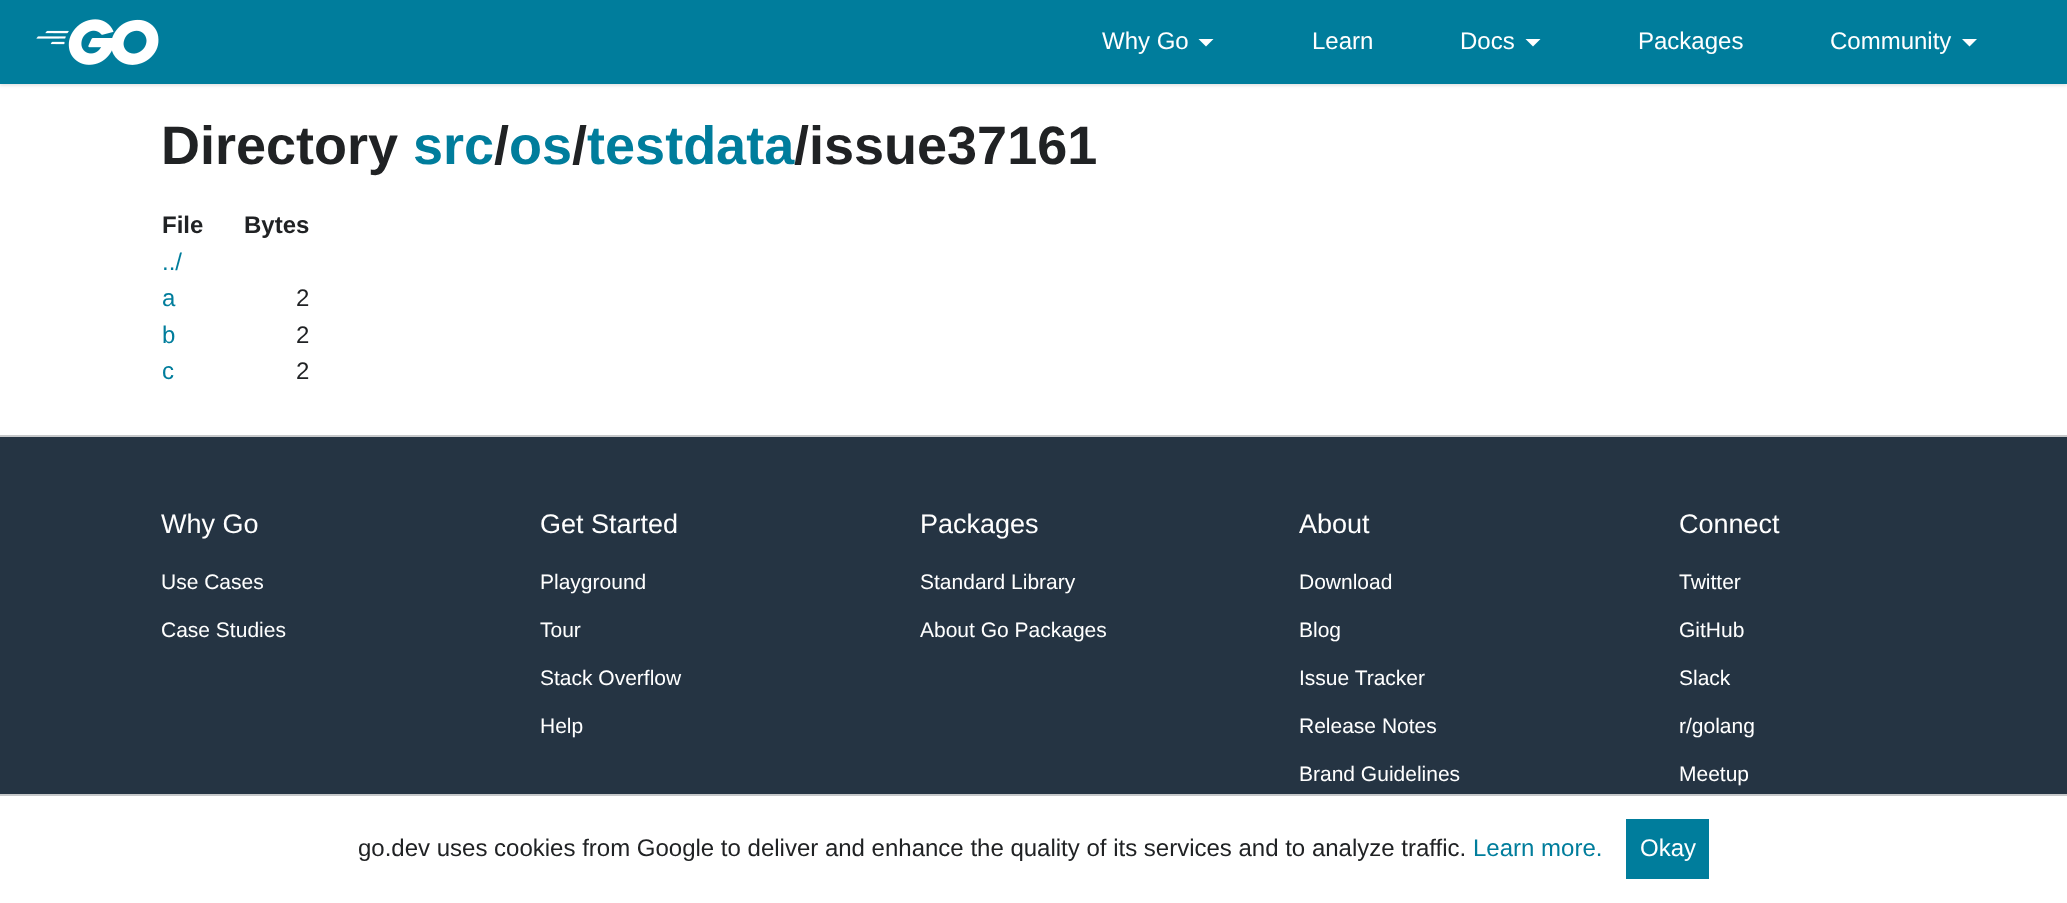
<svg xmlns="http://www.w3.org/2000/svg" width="2067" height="903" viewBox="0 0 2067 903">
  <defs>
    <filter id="blur1" x="-50%" y="-200%" width="200%" height="500%"><feGaussianBlur stdDeviation="1.5"/></filter>
  </defs>
  <rect width="100%" height="100%" fill="#ffffff"/>
  <rect x="0" y="2" width="2067" height="84" fill="#ababab" fill-opacity="0.3" filter="url(#blur1)"/>
  <rect x="0" y="0" width="2067" height="84" fill="#007d9c"/>
  <image x="36" y="19" width="123" height="46" href="img1.png"/>
  <text x="1102" y="49" font-family="Liberation Sans" font-size="24" fill="#ffffff">Why Go</text>
  <path d="M1198.5 39H1213.5L1206 46.5Z" fill="#ffffff"/>
  <text x="1312" y="49" font-family="Liberation Sans" font-size="24" fill="#ffffff">Learn</text>
  <text x="1460" y="49" font-family="Liberation Sans" font-size="24" fill="#ffffff">Docs</text>
  <path d="M1525.5 39H1540.5L1533 46.5Z" fill="#ffffff"/>
  <text x="1638" y="49" font-family="Liberation Sans" font-size="24" fill="#ffffff">Packages</text>
  <text x="1830" y="49" font-family="Liberation Sans" font-size="24" fill="#ffffff">Community</text>
  <path d="M1962 39H1977L1969.5 46.5Z" fill="#ffffff"/>
  <text x="161" y="164" font-family="Liberation Sans" font-size="54" font-weight="bold" fill="#202224">Directory</text>
  <text x="413" y="164" font-family="Liberation Sans" font-size="54" font-weight="bold" fill="#007d9c">src os testdata</text>
  <text x="494" y="164" font-family="Liberation Sans" font-size="54" font-weight="bold" fill="#202224">/</text>
  <text x="572" y="164" font-family="Liberation Sans" font-size="54" font-weight="bold" fill="#202224">/</text>
  <text x="794" y="164" font-family="Liberation Sans" font-size="54" font-weight="bold" fill="#202224">/issue37161</text>
  <text x="162" y="233" font-family="Liberation Sans" font-size="24" font-weight="bold" fill="#202224">File</text>
  <text x="244" y="233" font-family="Liberation Sans" font-size="24" font-weight="bold" fill="#202224">Bytes</text>
  <text x="162" y="270" font-family="Liberation Sans" font-size="24" fill="#007d9c">../</text>
  <text x="162" y="306" font-family="Liberation Sans" font-size="24" fill="#007d9c">a</text>
  <text x="296" y="306" font-family="Liberation Sans" font-size="24" fill="#202224">2</text>
  <text x="162" y="343" font-family="Liberation Sans" font-size="24" fill="#007d9c">b</text>
  <text x="296" y="343" font-family="Liberation Sans" font-size="24" fill="#202224">2</text>
  <text x="162" y="379" font-family="Liberation Sans" font-size="24" fill="#007d9c">c</text>
  <text x="296" y="379" font-family="Liberation Sans" font-size="24" fill="#202224">2</text>
  <rect x="0" y="435" width="2067" height="2" fill="#c6c8ca"/>
  <rect x="0" y="437" width="2067" height="357" fill="#253443"/>
  <text x="161" y="533" font-family="Liberation Sans" font-size="27" fill="#ffffff">Why Go</text>
  <text x="161" y="589" font-family="Liberation Sans" font-size="21" fill="#ffffff">Use Cases</text>
  <text x="161" y="637" font-family="Liberation Sans" font-size="21" fill="#ffffff">Case Studies</text>
  <text x="540" y="533" font-family="Liberation Sans" font-size="27" fill="#ffffff">Get Started</text>
  <text x="540" y="589" font-family="Liberation Sans" font-size="21" fill="#ffffff">Playground</text>
  <text x="540" y="637" font-family="Liberation Sans" font-size="21" fill="#ffffff">Tour</text>
  <text x="540" y="685" font-family="Liberation Sans" font-size="21" fill="#ffffff">Stack Overflow</text>
  <text x="540" y="733" font-family="Liberation Sans" font-size="21" fill="#ffffff">Help</text>
  <text x="920" y="533" font-family="Liberation Sans" font-size="27" fill="#ffffff">Packages</text>
  <text x="920" y="589" font-family="Liberation Sans" font-size="21" fill="#ffffff">Standard Library</text>
  <text x="920" y="637" font-family="Liberation Sans" font-size="21" fill="#ffffff">About Go Packages</text>
  <text x="1299" y="533" font-family="Liberation Sans" font-size="27" fill="#ffffff">About</text>
  <text x="1299" y="589" font-family="Liberation Sans" font-size="21" fill="#ffffff">Download</text>
  <text x="1299" y="637" font-family="Liberation Sans" font-size="21" fill="#ffffff">Blog</text>
  <text x="1299" y="685" font-family="Liberation Sans" font-size="21" fill="#ffffff">Issue Tracker</text>
  <text x="1299" y="733" font-family="Liberation Sans" font-size="21" fill="#ffffff">Release Notes</text>
  <text x="1299" y="781" font-family="Liberation Sans" font-size="21" fill="#ffffff">Brand Guidelines</text>
  <text x="1679" y="533" font-family="Liberation Sans" font-size="27" fill="#ffffff">Connect</text>
  <text x="1679" y="589" font-family="Liberation Sans" font-size="21" fill="#ffffff">Twitter</text>
  <text x="1679" y="637" font-family="Liberation Sans" font-size="21" fill="#ffffff">GitHub</text>
  <text x="1679" y="685" font-family="Liberation Sans" font-size="21" fill="#ffffff">Slack</text>
  <text x="1679" y="733" font-family="Liberation Sans" font-size="21" fill="#ffffff">r/golang</text>
  <text x="1679" y="781" font-family="Liberation Sans" font-size="21" fill="#ffffff">Meetup</text>
  <rect x="0" y="794" width="2067" height="2" fill="#c6c8ca"/>
  <text x="358" y="856" font-family="Liberation Sans" font-size="24" fill="#202224">go.dev uses cookies from Google to deliver and enhance the quality of its services and to analyze traffic.</text>
  <text x="1473" y="856" font-family="Liberation Sans" font-size="24" fill="#007d9c">Learn more.</text>
  <rect x="1626" y="819" width="83" height="60" fill="#007d9c"/>
  <text x="1640" y="856" font-family="Liberation Sans" font-size="24" fill="#ffffff">Okay</text>
</svg>
